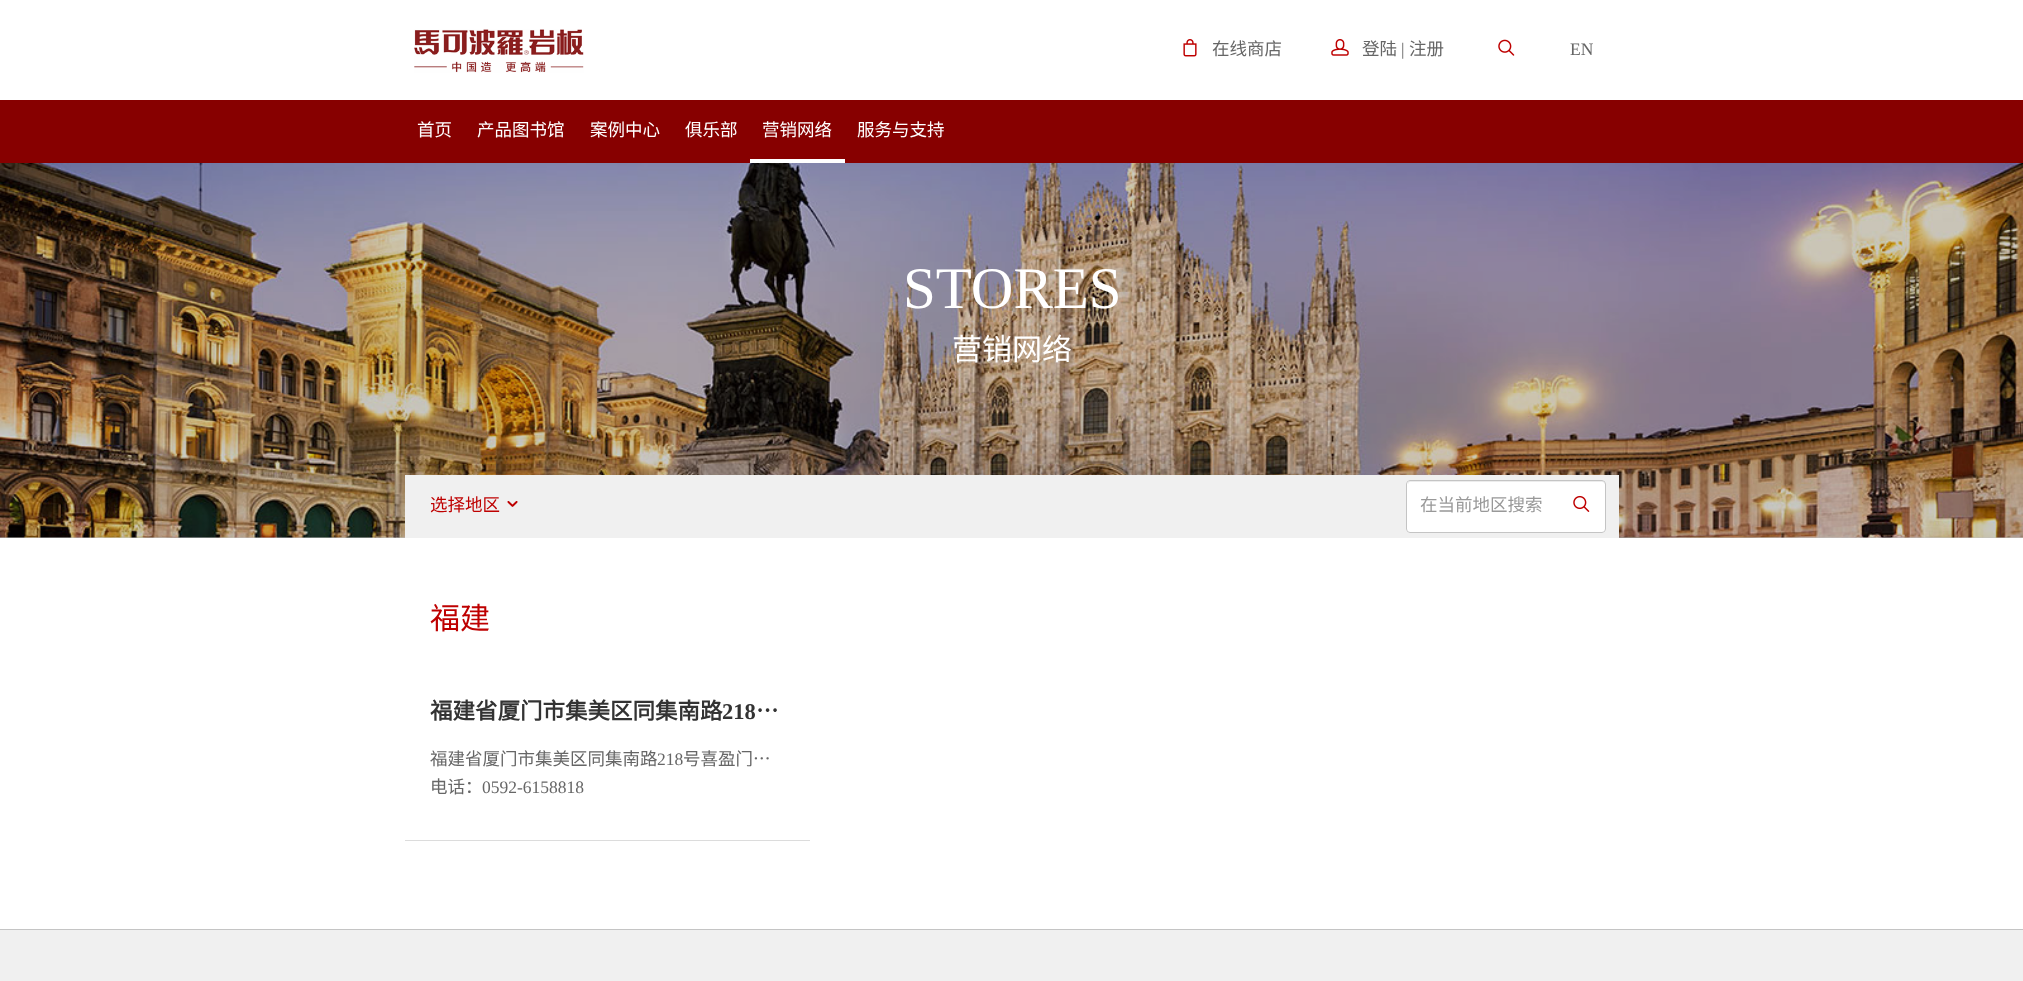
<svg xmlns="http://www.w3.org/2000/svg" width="2023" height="981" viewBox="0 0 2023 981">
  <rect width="100%" height="100%" fill="#ffffff"/>
  <image x="414" y="29" width="170" height="44" href="img1.png"/>
  <image x="1183" y="39" width="14" height="18" href="img2.png"/>
  <text x="1212" y="55" font-family="Noto Sans CJK SC" font-size="17.5" fill="#666666">在线商店</text>
  <image x="1331" y="39" width="18" height="17" href="img3.png"/>
  <text x="1362" y="55" font-family="Noto Sans CJK SC" font-size="17.5" fill="#666666">登陆</text>
  <text x="1401" y="55" font-family="Liberation Serif" font-size="17.5" fill="#666666">|</text>
  <text x="1409" y="55" font-family="Noto Sans CJK SC" font-size="17.5" fill="#666666">注册</text>
  <image x="1498" y="39" width="17" height="17" href="img4.png"/>
  <text x="1570" y="55" font-family="Liberation Serif" font-size="17.5" fill="#666666">EN</text>
  <rect x="0" y="100" width="2023" height="63" fill="#870000"/>
  <text x="417" y="136" font-family="Noto Sans CJK SC" font-size="17.5" fill="#ffffff">首页</text>
  <text x="477" y="136" font-family="Noto Sans CJK SC" font-size="17.5" fill="#ffffff">产品图书馆</text>
  <text x="590" y="136" font-family="Noto Sans CJK SC" font-size="17.5" fill="#ffffff">案例中心</text>
  <text x="685" y="136" font-family="Noto Sans CJK SC" font-size="17.5" fill="#ffffff">俱乐部</text>
  <text x="762" y="136" font-family="Noto Sans CJK SC" font-size="17.5" fill="#ffffff">营销网络</text>
  <rect x="750" y="159" width="95" height="4" fill="#ffffff"/>
  <text x="857" y="136" font-family="Noto Sans CJK SC" font-size="17.5" fill="#ffffff">服务与支持</text>
  <rect x="0" y="537" width="2023" height="1" fill="#c0c0c0"/>
  <image x="0" y="163" width="2023" height="375" href="img5.png"/>
  <text x="903" y="308" font-family="Liberation Serif" font-size="59" fill="#ffffff">STORES</text>
  <text x="952" y="360" font-family="Noto Sans CJK SC" font-size="30" fill="#ffffff">营销网络</text>
  <rect x="405" y="475" width="1214" height="63" fill="#f0f0f0"/>
  <text x="430" y="511" font-family="Noto Sans CJK SC" font-size="17.5" fill="#be0000">选择地区</text>
  <image x="507" y="501" width="11" height="6" href="img6.png"/>
  <rect x="1406" y="480" width="200" height="53" rx="4" fill="#ffffff"/>
  <path d="M1410 482H1602C1604 482 1605 484 1605 485C1605 483 1605 481 1602 481H1410C1408 481 1408 483 1408 485C1408 484 1409 482 1410 482Z" fill="#ececec"/>
  <rect x="1406.5" y="480.5" width="199" height="52" rx="3.5" fill="none" stroke="#c4c4c4"/>
  <text x="1420" y="511" font-family="Noto Sans CJK SC" font-size="17.5" fill="#999999">在当前地区搜索</text>
  <image x="1573" y="495" width="17" height="17" href="img7.png"/>
  <text x="430" y="629" font-family="Noto Sans CJK SC" font-size="30" fill="#be0000">福建</text>
  <rect x="405" y="840" width="405" height="1" fill="#dcdcdc"/>
  <text x="430" y="719" font-family="Noto Sans CJK SC" font-size="22.5" font-weight="bold" fill="#333333">福建省厦门市集美区同集南路</text>
  <text x="722" y="719" font-family="Liberation Serif" font-size="22.5" font-weight="bold" fill="#333333">218</text>
  <text x="756" y="719" font-family="Noto Sans CJK SC" font-size="22.5" font-weight="bold" fill="#333333">…</text>
  <text x="430" y="765" font-family="Noto Sans CJK SC" font-size="17.5" fill="#666666">福建省厦门市集美区同集南路</text>
  <text x="657" y="765" font-family="Liberation Serif" font-size="17.5" fill="#666666">218</text>
  <text x="683" y="765" font-family="Noto Sans CJK SC" font-size="17.5" fill="#666666">号喜盈门…</text>
  <text x="430" y="793" font-family="Noto Sans CJK SC" font-size="17.5" fill="#666666">电话：</text>
  <text x="482" y="793" font-family="Liberation Serif" font-size="17.5" fill="#666666">0592-6158818</text>
  <rect x="0" y="930" width="2023" height="51" fill="#f0f0f0"/>
  <rect x="0" y="929" width="2023" height="1" fill="#c4c4c4"/>
</svg>
